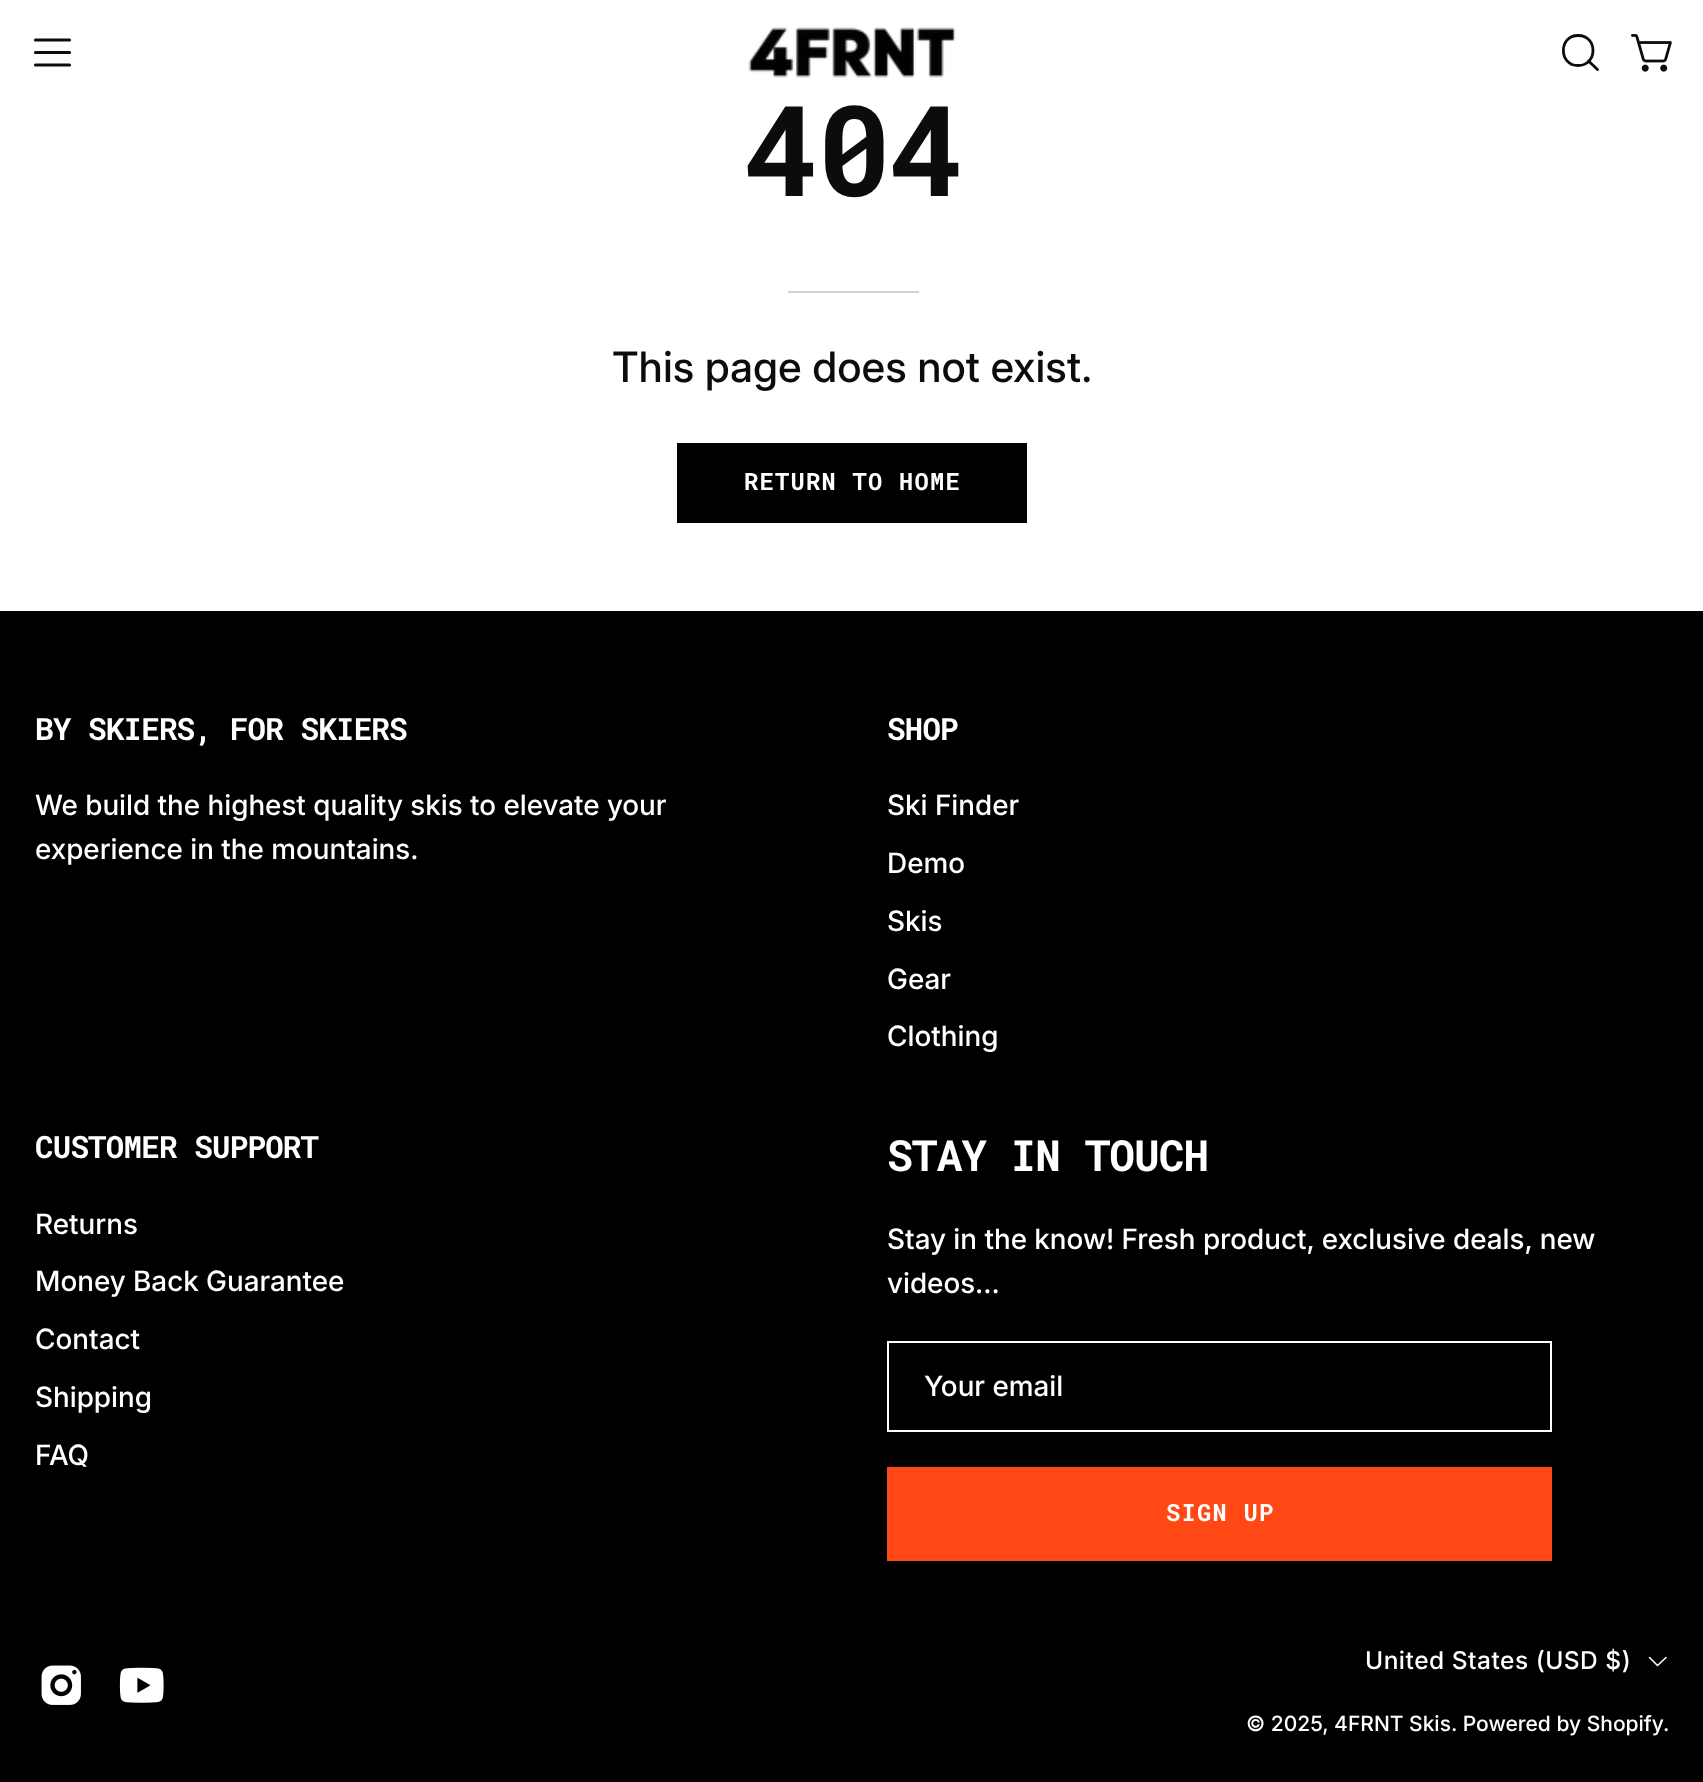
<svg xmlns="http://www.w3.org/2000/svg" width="1703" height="1782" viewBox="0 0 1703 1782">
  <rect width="100%" height="100%" fill="#000000"/>
  <rect x="0" y="0" width="1703" height="611" fill="#ffffff"/>
  <path d="M35.5 52.5H69.5M35.5 40H69.5M35.5 65H69.5" fill="none" stroke="#0c0c0f" stroke-width="3.1" stroke-linecap="round" stroke-linejoin="round"/>
  <image x="748" y="27" width="208" height="51" href="img1.png"/>
  <path d="M1578 65.5C1598 65.5 1598 35.5 1578 35.5C1558.5 35.5 1558.5 65.5 1578 65.5ZM1588.5 61L1597.5 69.5" fill="none" stroke="#0c0c0f" stroke-width="2.8" stroke-linecap="round" stroke-linejoin="round"/>
  <image x="1631" y="34" width="41" height="38" href="img2.png"/>
  <text x="744" y="196" font-family="Roboto Mono" font-size="126" font-weight="bold" letter-spacing="-3" fill="#0c0c0f">404</text>
  <rect x="788" y="291" width="131" height="2" fill="#d3d3d3"/>
  <text x="612" y="382" font-family="'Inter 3'" font-size="42" font-weight="500" fill="#0c0c0f">This page does not exist.</text>
  <rect x="677" y="443" width="350" height="80" fill="#000000"/>
  <text x="744" y="490" font-family="Roboto Mono" font-size="23.75" font-weight="bold" letter-spacing="1.25" fill="#ffffff">RETURN TO HOME</text>
  <text x="35" y="740" font-family="Roboto Mono" font-size="30.75" font-weight="bold" letter-spacing="-0.75" fill="#ffffff">BY SKIERS, FOR SKIERS</text>
  <text x="35" y="815" font-family="Inter" font-size="28" font-weight="500" fill="#ffffff">We build the highest quality skis to elevate your</text>
  <text x="35" y="859" font-family="Inter" font-size="28" font-weight="500" fill="#ffffff">experience in the mountains.</text>
  <text x="887" y="740" font-family="Roboto Mono" font-size="30.75" font-weight="bold" letter-spacing="-0.75" fill="#ffffff">SHOP</text>
  <text x="887" y="815" font-family="Inter" font-size="28" font-weight="500" fill="#ffffff">Ski Finder</text>
  <text x="887" y="873" font-family="Inter" font-size="28" font-weight="500" fill="#ffffff">Demo</text>
  <text x="887" y="931" font-family="Inter" font-size="28" font-weight="500" fill="#ffffff">Skis</text>
  <text x="887" y="989" font-family="Inter" font-size="28" font-weight="500" fill="#ffffff">Gear</text>
  <text x="887" y="1046" font-family="Inter" font-size="28" font-weight="500" fill="#ffffff">Clothing</text>
  <text x="35" y="1158" font-family="Roboto Mono" font-size="30.75" font-weight="bold" letter-spacing="-0.75" fill="#ffffff">CUSTOMER SUPPORT</text>
  <text x="35" y="1234" font-family="Inter" font-size="28" font-weight="500" fill="#ffffff">Returns</text>
  <text x="35" y="1291" font-family="Inter" font-size="28" font-weight="500" fill="#ffffff">Money Back Guarantee</text>
  <text x="35" y="1349" font-family="Inter" font-size="28" font-weight="500" fill="#ffffff">Contact</text>
  <text x="35" y="1407" font-family="Inter" font-size="28" font-weight="500" fill="#ffffff">Shipping</text>
  <text x="35" y="1465" font-family="Inter" font-size="28" font-weight="500" fill="#ffffff">FAQ</text>
  <text x="887" y="1171" font-family="Roboto Mono" font-size="43" font-weight="bold" letter-spacing="-1.1" fill="#ffffff">STAY IN TOUCH</text>
  <text x="887" y="1249" font-family="Inter" font-size="28" font-weight="500" fill="#ffffff">Stay in the know! Fresh product, exclusive deals, new</text>
  <text x="887" y="1293" font-family="Inter" font-size="28" font-weight="500" fill="#ffffff">videos...</text>
  <rect x="888" y="1342" width="663" height="89" fill="none" stroke="#ffffff" stroke-width="2"/>
  <text x="924" y="1396" font-family="Inter" font-size="28" font-weight="500" fill="#ffffff">Your email</text>
  <rect x="887" y="1467" width="665" height="94" fill="#ff4814"/>
  <text x="1166" y="1521" font-family="Roboto Mono" font-size="23.75" font-weight="bold" letter-spacing="1.25" fill="#ffffff">SIGN UP</text>
  <image x="41" y="1665" width="40" height="40" href="img3.png"/>
  <image x="119" y="1667" width="45" height="36" href="img4.png"/>
  <text x="1365" y="1669" font-family="'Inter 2'" font-size="24.5" font-weight="500" letter-spacing="0.5" fill="#ffffff">United States (USD $)</text>
  <path d="M1666 1657.5L1657.5 1665.5L1649.5 1657.5" fill="none" stroke="#ffffff" stroke-width="1.6" stroke-linecap="round" stroke-linejoin="round"/>
  <text x="1246" y="1731" font-family="'Inter 2'" font-size="21" font-weight="500" fill="#ffffff">© 2025, 4FRNT Skis. Powered by Shopify</text>
  <text x="1663" y="1731" font-family="'Inter 2'" font-size="21" font-weight="500" fill="#ffffff">.</text>
</svg>
